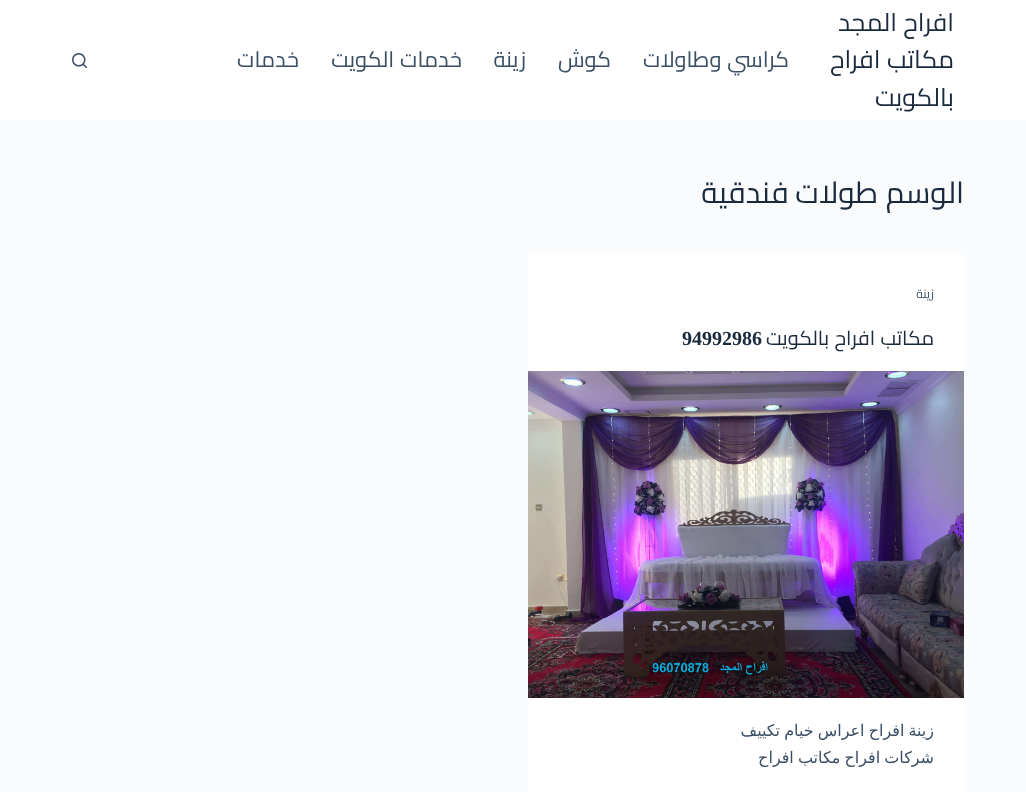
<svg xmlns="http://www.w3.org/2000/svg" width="1026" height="792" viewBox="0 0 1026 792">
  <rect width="100%" height="100%" fill="#fafbfc"/>
  <rect x="0" y="0" width="1026" height="120" fill="#ffffff"/>
  <text x="954" y="31" word-spacing="1" font-family="Cairo" font-size="25" direction="rtl" fill="#192a3d">افراح المجد</text>
  <text x="954" y="68" word-spacing="1" font-family="Cairo" font-size="25" direction="rtl" fill="#192a3d">مكاتب افراح</text>
  <text x="954" y="106" font-family="Cairo" font-size="25" direction="rtl" fill="#192a3d">بالكويت</text>
  <text x="789" y="67" word-spacing="1" font-family="Cairo" font-size="22" direction="rtl" fill="#3a4f66">كراسي وطاولات</text>
  <text x="611" y="67" font-family="Cairo" font-size="22" direction="rtl" fill="#3a4f66">كوش</text>
  <text x="526" y="67" font-family="Cairo" font-size="22" direction="rtl" fill="#3a4f66">زينة</text>
  <text x="462" y="67" word-spacing="1" font-family="Cairo" font-size="22" direction="rtl" fill="#3a4f66">خدمات الكويت</text>
  <text x="299" y="67" font-family="Cairo" font-size="22" direction="rtl" fill="#3a4f66">خدمات</text>
  <image x="72" y="53" width="15" height="15" href="img1.png"/>
  <text x="964" y="203" font-family="Cairo" font-size="30" direction="rtl" fill="#192a3d">الوسم</text>
  <text x="878" y="203" font-family="Cairo" font-size="30" direction="rtl" fill="#192a3d">طولات فندقية</text>
  <rect x="528" y="255" width="436" height="537" fill="#ffffff"/>
  <text x="934" y="298" font-family="Cairo" font-size="12" direction="rtl" fill="#3a4f66">زينة</text>
  <text x="934" y="345" word-spacing="1" font-family="Cairo" font-size="20" direction="rtl" fill="#192a3d">مكاتب افراح بالكويت</text>
  <text x="682" y="345" font-family="Liberation Serif" font-size="20" font-weight="bold" fill="#192a3d">94992986</text>
  <image x="528" y="371" width="436" height="327" href="img2.png"/>
  <text x="934" y="736" word-spacing="-1" font-family="DejaVu Sans" font-size="16" direction="rtl" fill="#3a4f66">زينة افراح اعراس خيام تكييف</text>
  <text x="934" y="763" word-spacing="-1" font-family="DejaVu Sans" font-size="16" direction="rtl" fill="#3a4f66">شركات افراح مكاتب افراح</text>
</svg>
